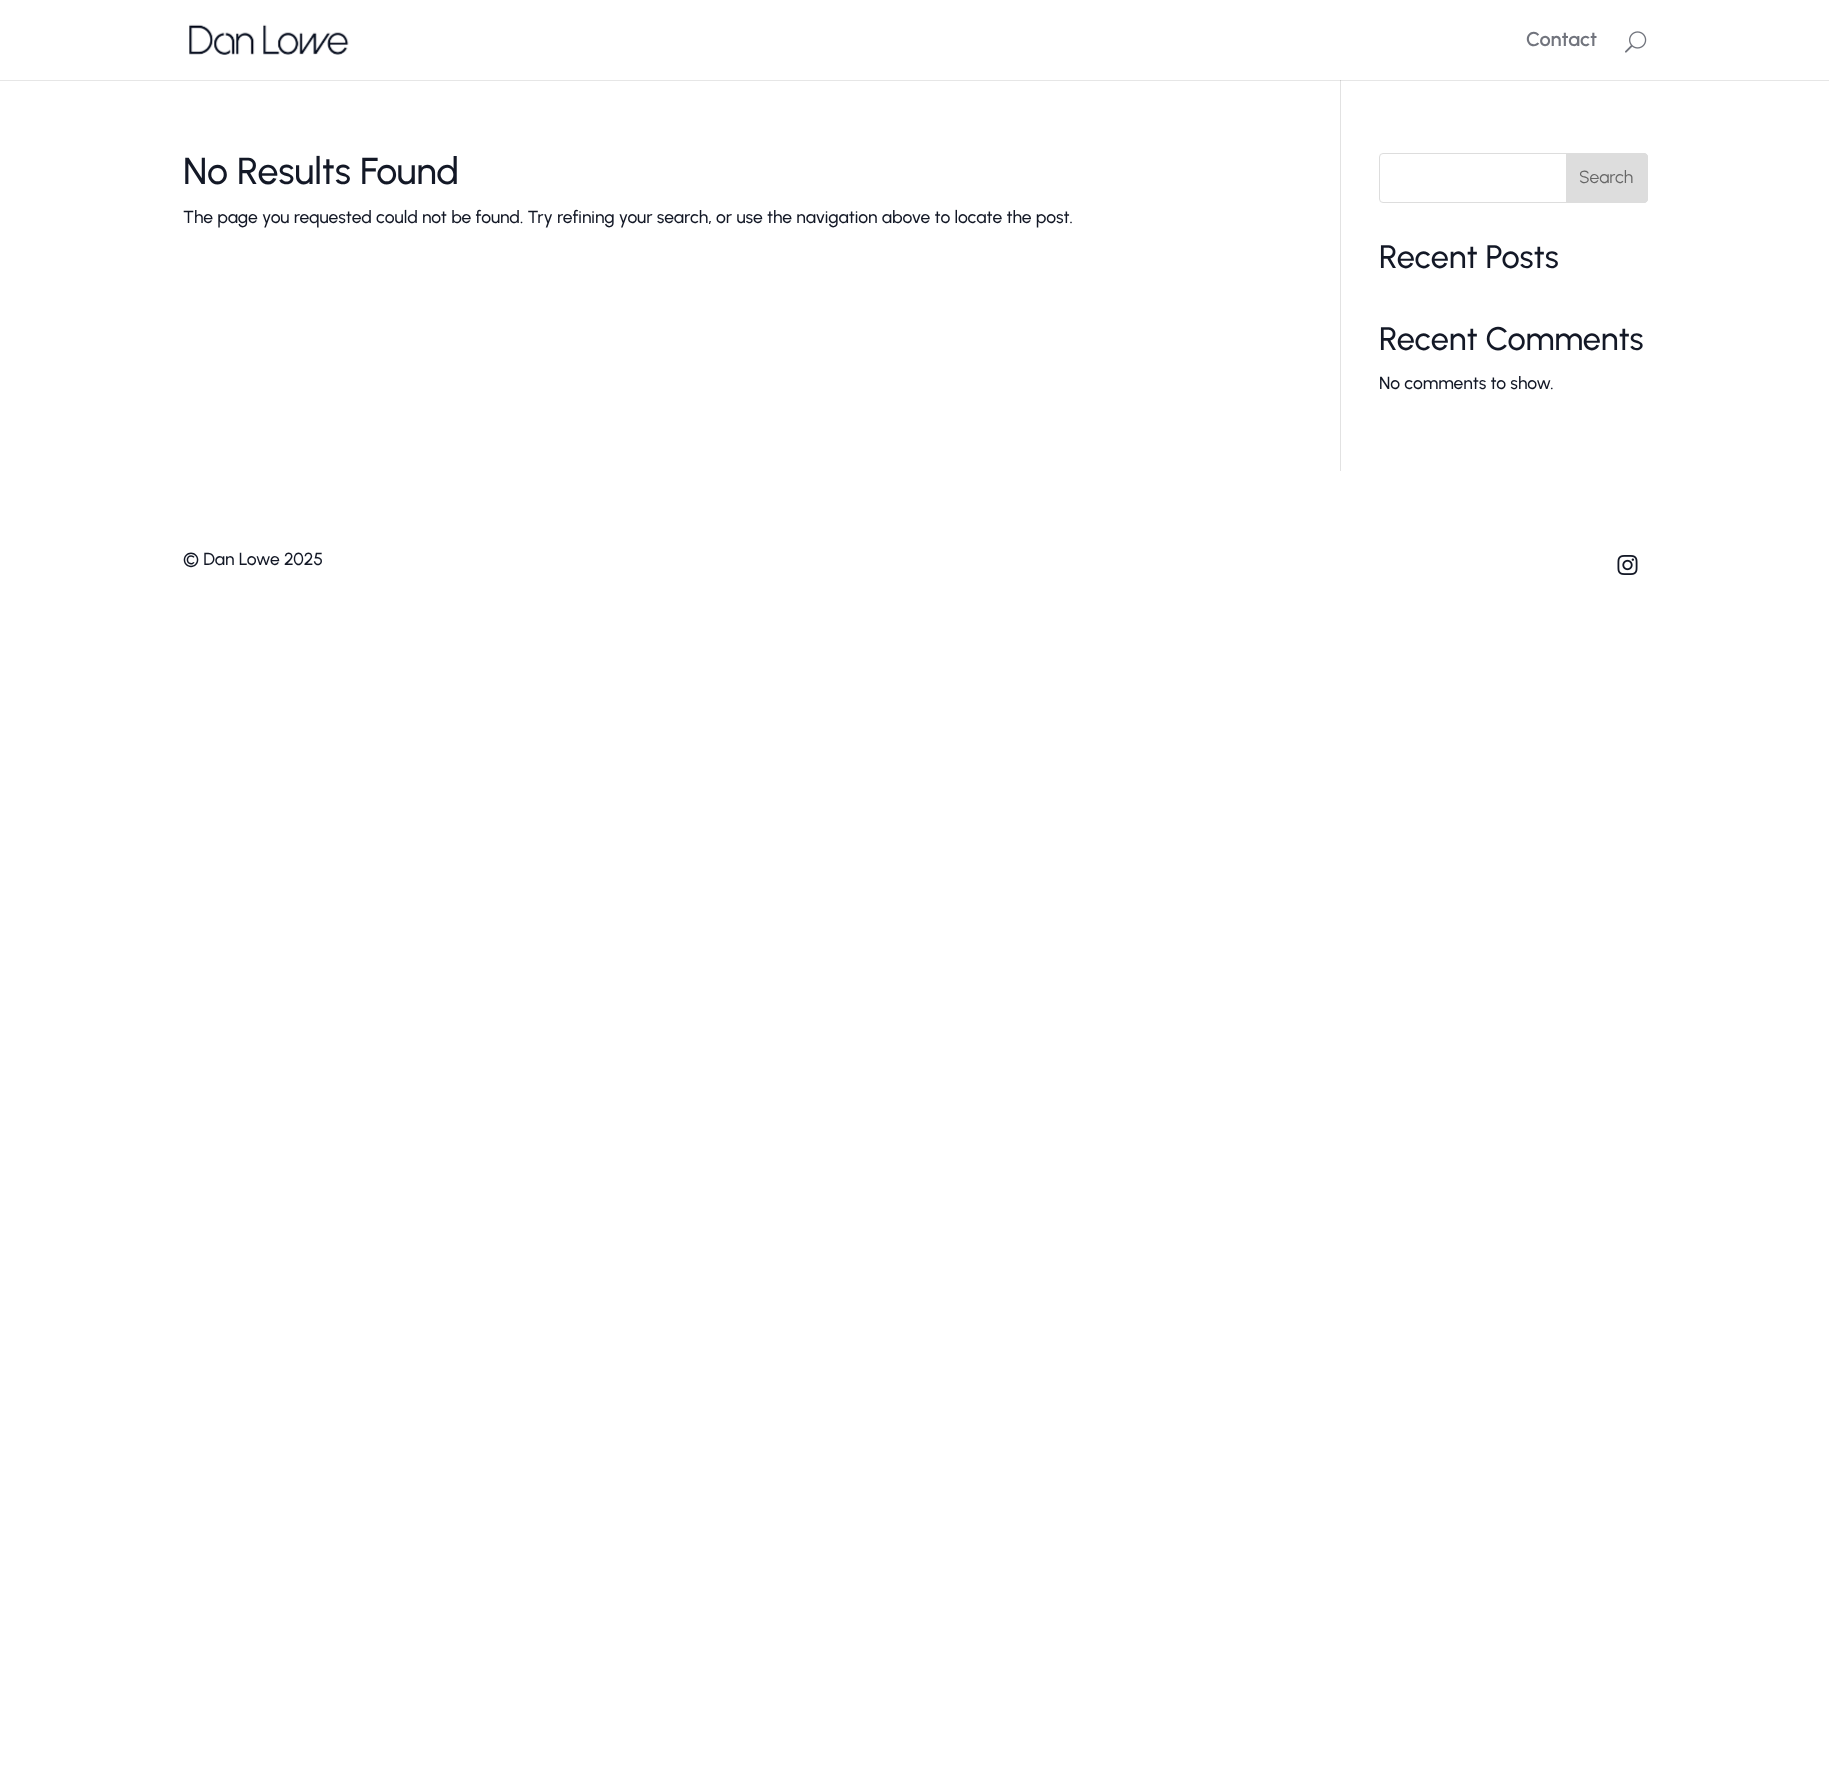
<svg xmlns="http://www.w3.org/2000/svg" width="1829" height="1768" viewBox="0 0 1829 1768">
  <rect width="100%" height="100%" fill="#ffffff"/>
  <rect x="0" y="80" width="1829" height="1" fill="#e6e6e6"/>
  <image x="189" y="24" width="160" height="31" href="img1.png"/>
  <text x="1526" y="46" font-family="Urbanist" font-size="20" font-weight="600" fill="#71747d">Contact</text>
  <image x="1625" y="31" width="22" height="22" href="img2.png"/>
  <rect x="1340" y="80" width="1" height="391" fill="#e2e2e2"/>
  <rect x="1340" y="80" width="1" height="1" fill="#cbcbcb"/>
  <text x="183" y="184" font-family="Urbanist" font-size="37.5" font-weight="500" fill="#131826">No Results Found</text>
  <text x="183" y="223" font-family="Urbanist" font-size="17.5" font-weight="500" fill="#131826">The page you requested could not be found. Try refining your search, or use the navigation above to locate the post.</text>
  <rect x="1379.5" y="153.5" width="268" height="49" rx="3.5" fill="none" stroke="#dddddd"/>
  <path d="M1566.5 153.5H1644C1646 153.5 1647.5 155 1647.5 157V199C1647.5 201 1646 202.5 1644 202.5H1566.5Z" fill="#dddddd" stroke="#dddddd"/>
  <text x="1579" y="183" font-family="Urbanist" font-size="17.5" fill="#666666">Search</text>
  <text x="1379" y="268" font-family="Urbanist" font-size="32.5" font-weight="500" fill="#131826">Recent Posts</text>
  <text x="1379" y="350" font-family="Urbanist" font-size="32.5" font-weight="500" fill="#131826">Recent Comments</text>
  <text x="1379" y="389" font-family="Urbanist" font-size="17.5" font-weight="500" fill="#131826">No comments to show.</text>
  <text x="183" y="565" font-family="Urbanist" font-size="17.5" font-weight="500" fill="#131826">© Dan Lowe 2025</text>
  <image x="1617" y="555" width="21" height="20" href="img3.png"/>
</svg>
